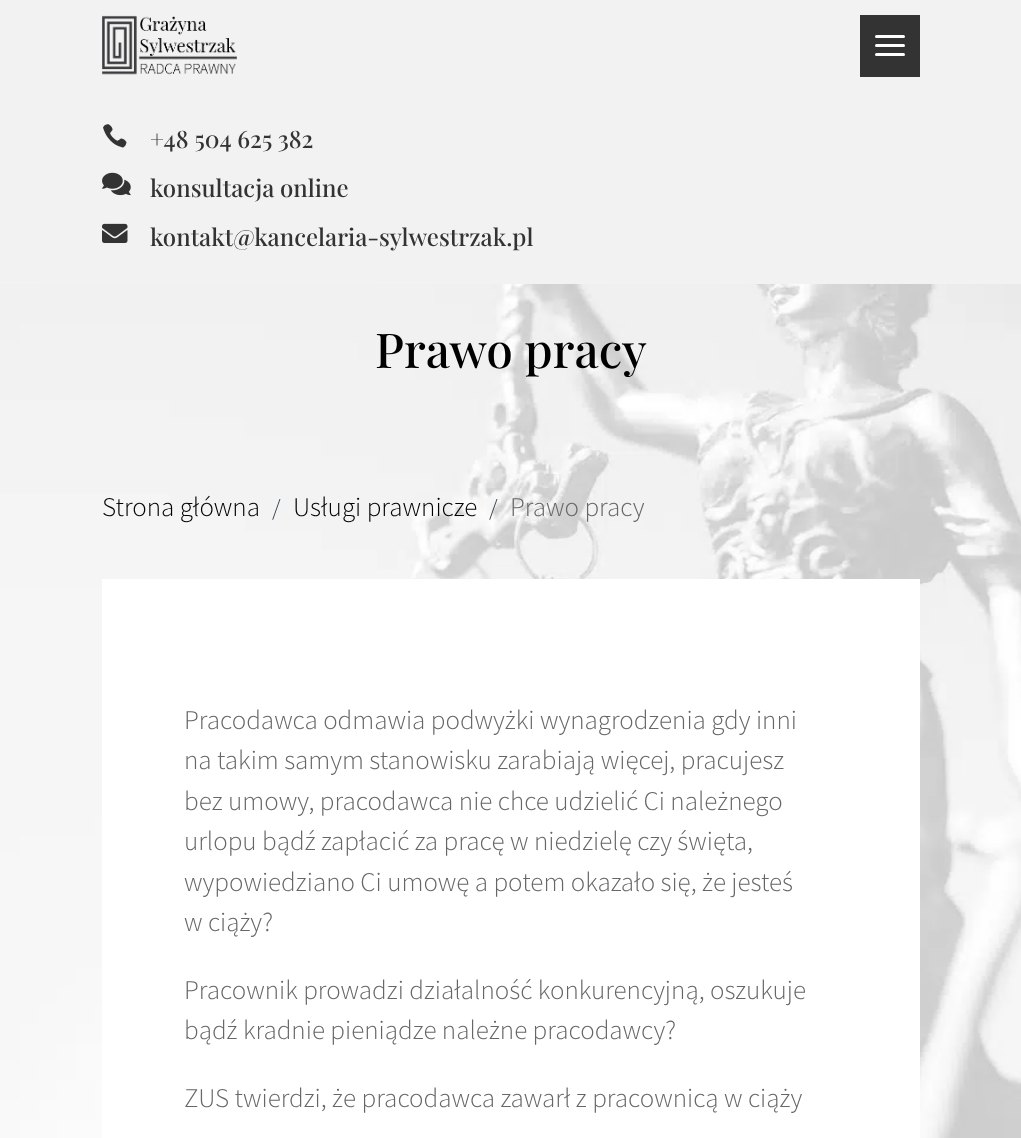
<svg xmlns="http://www.w3.org/2000/svg" width="1021" height="1138" viewBox="0 0 1021 1138">
  <rect width="100%" height="100%" fill="#ffffff"/>
  <rect x="0" y="0" width="1021" height="284" fill="#f2f2f2"/>
  <image x="102" y="15" width="135" height="60" href="img1.png"/>
  <rect x="860" y="15" width="60" height="62" fill="#333333"/>
  <rect x="875" y="35" width="30" height="3" rx="1.5" fill="#ffffff"/>
  <rect x="875" y="44" width="30" height="3" rx="1.5" fill="#ffffff"/>
  <rect x="875" y="53" width="30" height="3" rx="1.5" fill="#ffffff"/>
  <image x="103" y="124" width="24" height="24" href="img2.png"/>
  <text x="150" y="148" font-family="Playfair Display" font-size="24" font-weight="500" fill="#333333">+48 504 625 382</text>
  <image x="102" y="172" width="29" height="24" href="img3.png"/>
  <text x="150" y="197" font-family="Playfair Display" font-size="24" font-weight="500" fill="#333333">konsultacja online</text>
  <image x="102" y="223" width="26" height="20" href="img4.png"/>
  <text x="150" y="246" font-family="Playfair Display" font-size="24" font-weight="500" fill="#333333">kontakt@kancelaria-sylwestrzak.pl</text>
  <image x="0" y="284" width="1021" height="854" href="img5.png"/>
  <text x="375" y="368" font-family="Playfair Display" font-size="48" font-weight="500" fill="#000000">Prawo pracy</text>
  <text x="102" y="516" font-family="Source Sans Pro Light" font-size="27" font-weight="300" fill="#000000">Strona główna</text>
  <text x="272" y="516" font-family="Source Sans Pro Light" font-size="24" font-weight="300" fill="#2c3d49">/</text>
  <text x="293" y="516" font-family="Source Sans Pro Light" font-size="27" font-weight="300" fill="#000000">Usługi prawnicze</text>
  <text x="489" y="516" font-family="Source Sans Pro Light" font-size="24" font-weight="300" fill="#2c3d49">/</text>
  <text x="510" y="516" font-family="Source Sans Pro Light" font-size="27" font-weight="300" fill="#666666">Prawo pracy</text>
  <rect x="102" y="579" width="818" height="559" fill="#ffffff"/>
  <text x="184" y="729" font-family="Source Sans Pro Light" font-size="27" font-weight="300" fill="#666666">Pracodawca odmawia podwyżki wynagrodzenia gdy inni</text>
  <text x="184" y="769" font-family="Source Sans Pro Light" font-size="27" font-weight="300" fill="#666666">na takim samym stanowisku zarabiają więcej, pracujesz</text>
  <text x="184" y="810" font-family="Source Sans Pro Light" font-size="27" font-weight="300" fill="#666666">bez umowy, pracodawca nie chce udzielić Ci należnego</text>
  <text x="184" y="850" font-family="Source Sans Pro Light" font-size="27" font-weight="300" fill="#666666">urlopu bądź zapłacić za pracę w niedzielę czy święta,</text>
  <text x="184" y="891" font-family="Source Sans Pro Light" font-size="27" font-weight="300" fill="#666666">wypowiedziano Ci umowę a potem okazało się, że jesteś</text>
  <text x="184" y="931" font-family="Source Sans Pro Light" font-size="27" font-weight="300" fill="#666666">w ciąży?</text>
  <text x="184" y="999" font-family="Source Sans Pro Light" font-size="27" font-weight="300" fill="#666666">Pracownik prowadzi działalność konkurencyjną, oszukuje</text>
  <text x="184" y="1039" font-family="Source Sans Pro Light" font-size="27" font-weight="300" fill="#666666">bądź kradnie pieniądze należne pracodawcy?</text>
  <text x="184" y="1107" font-family="Source Sans Pro Light" font-size="27" font-weight="300" fill="#666666">ZUS twierdzi, że pracodawca zawarł z pracownicą w ciąży</text>
</svg>
